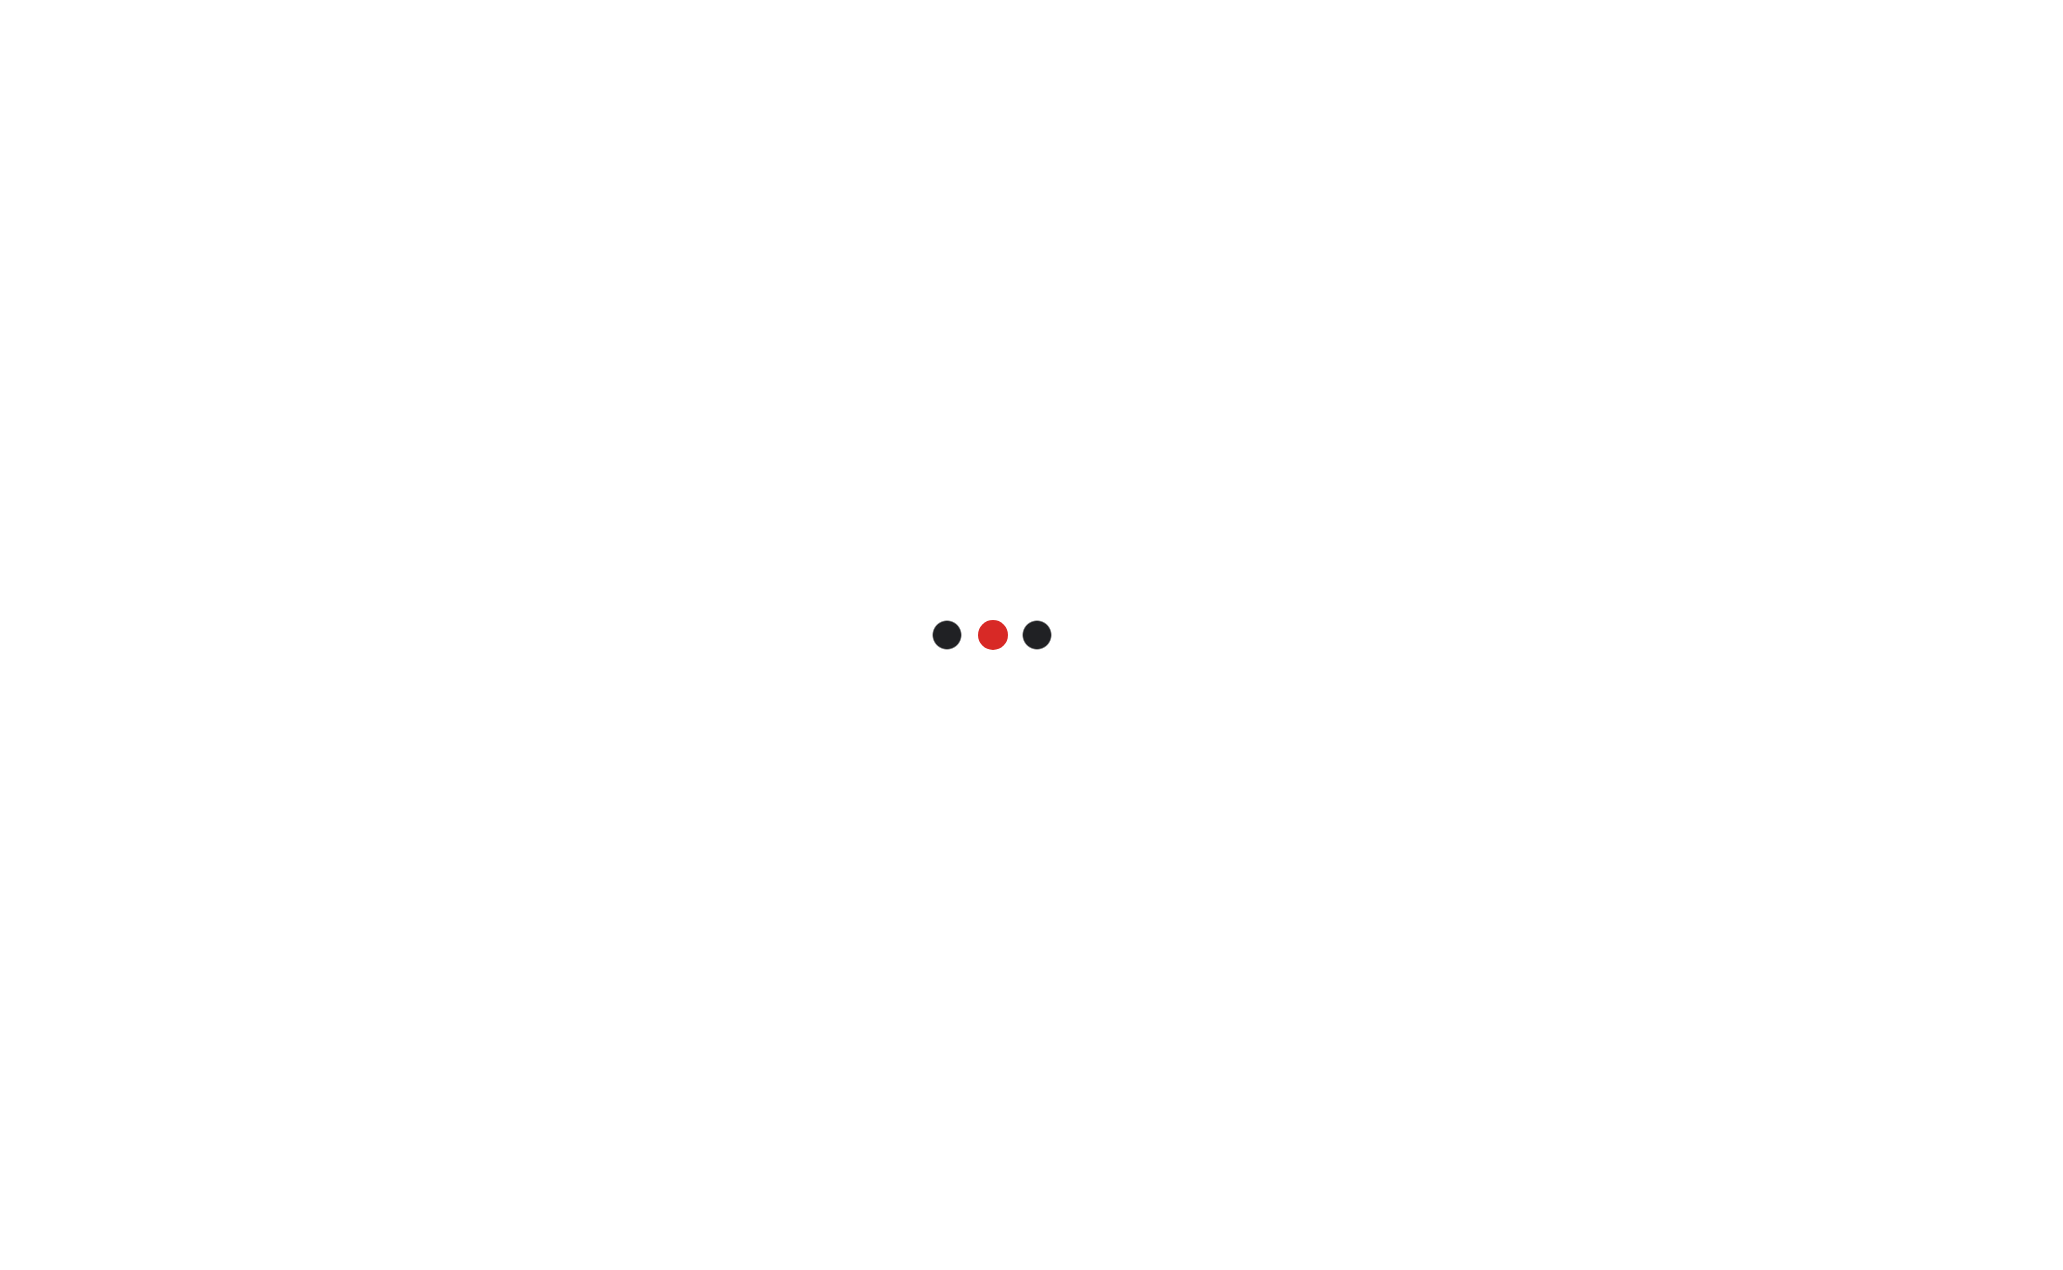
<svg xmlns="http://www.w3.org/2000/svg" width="2063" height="1270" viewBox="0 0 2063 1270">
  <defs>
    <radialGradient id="g1" gradientUnits="userSpaceOnUse" cx="1037" cy="635" r="15"><stop offset="0.9" stop-color="#202124"/><stop offset="1" stop-color="#ffffff"/></radialGradient>
    <radialGradient id="g2" gradientUnits="userSpaceOnUse" cx="947" cy="635" r="15"><stop offset="0.9" stop-color="#202124"/><stop offset="1" stop-color="#ffffff"/></radialGradient>
  </defs>
  <rect width="100%" height="100%" fill="#ffffff"/>
  <rect x="1022" y="620" width="30" height="30" fill="url(#g1)"/>
  <rect x="932" y="620" width="30" height="30" fill="url(#g2)"/>
  <circle cx="993" cy="635" r="15" fill="#d82926"/>
</svg>
